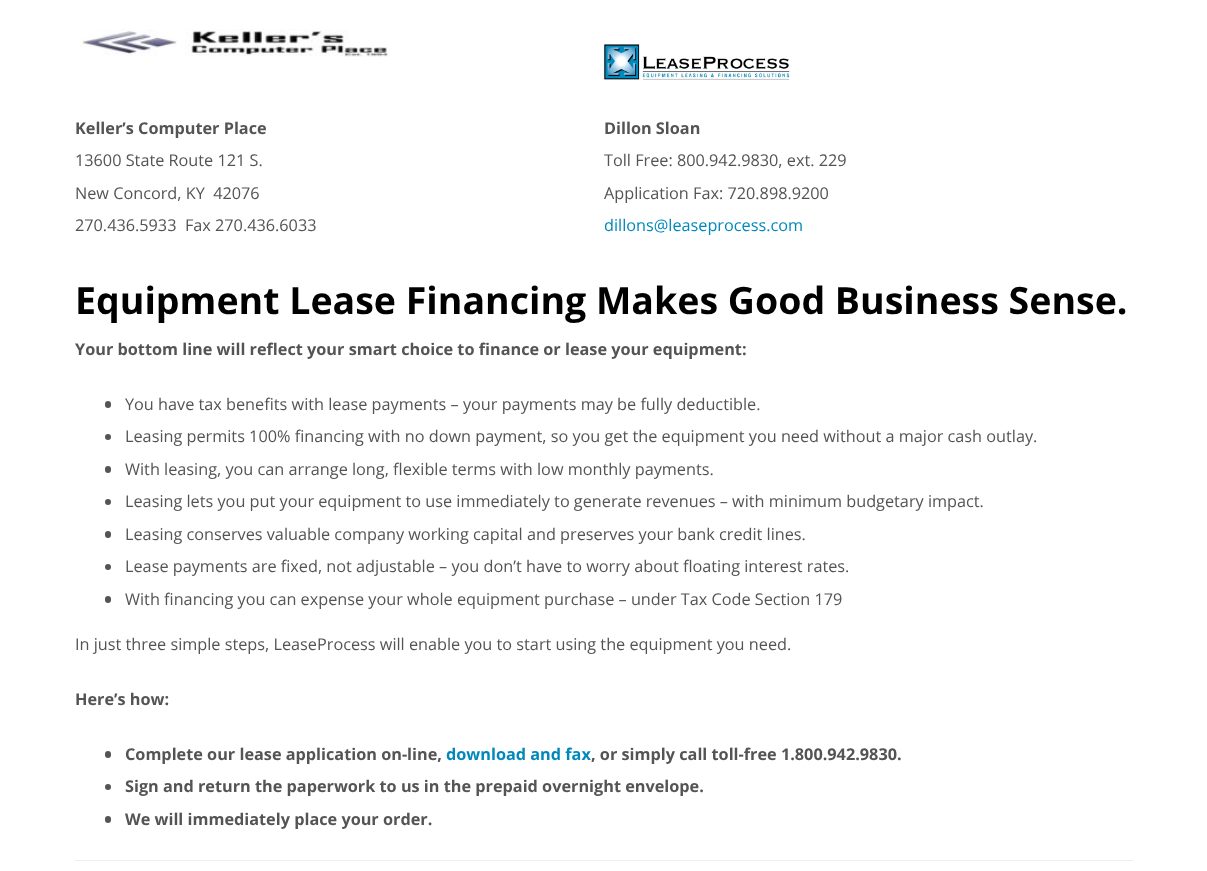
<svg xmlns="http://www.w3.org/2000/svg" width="1207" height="871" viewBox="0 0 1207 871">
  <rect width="100%" height="100%" fill="#ffffff"/>
  <image x="80" y="29" width="309" height="28" href="img1.png"/>
  <image x="603" y="44" width="187" height="36" href="img2.png"/>
  <text x="75" y="134" font-family="Open Sans" font-size="16.25" font-weight="bold" fill="#545454">Keller’s Computer Place</text>
  <text x="75" y="166" font-family="Open Sans" font-size="16.25" fill="#545454">13600 State Route 121 S.</text>
  <text x="75" y="199" font-family="Open Sans" font-size="16.25" fill="#545454" xml:space="preserve">New Concord, KY  42076</text>
  <text x="75" y="231" font-family="Open Sans" font-size="16.25" fill="#545454" xml:space="preserve">270.436.5933  Fax 270.436.6033</text>
  <text x="604" y="134" font-family="Open Sans" font-size="16.25" font-weight="bold" fill="#545454">Dillon Sloan</text>
  <text x="604" y="166" font-family="Open Sans" font-size="16.25" fill="#545454">Toll Free: 800.942.9830, ext. 229</text>
  <text x="604" y="199" font-family="Open Sans" font-size="16.25" fill="#545454">Application Fax: 720.898.9200</text>
  <text x="604" y="231" font-family="Open Sans" font-size="16.25" fill="#0088bb">dillons@leaseprocess.com</text>
  <text x="75" y="314" font-family="'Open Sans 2'" font-size="37.5" font-weight="bold" fill="#000000">Equipment Lease Financing Makes Good Business Sense.</text>
  <text x="75" y="355" font-family="Open Sans" font-size="16.25" font-weight="bold" fill="#545454">Your bottom line will reflect your smart choice to finance or lease your equipment:</text>
  <rect x="105" y="401" width="6" height="7" rx="3" fill="#545454"/>
  <text x="125" y="410" font-family="Open Sans" font-size="16.25" fill="#545454">You have tax benefits with lease payments – your payments may be fully deductible.</text>
  <circle cx="108" cy="437" r="3" fill="#545454"/>
  <text x="125" y="442" font-family="Open Sans" font-size="16.25" fill="#545454">Leasing permits 100% financing with no down payment, so you get the equipment you need without a major cash outlay.</text>
  <rect x="105" y="466" width="6" height="7" rx="3" fill="#545454"/>
  <text x="125" y="475" font-family="Open Sans" font-size="16.25" fill="#545454">With leasing, you can arrange long, flexible terms with low monthly payments.</text>
  <circle cx="108" cy="502" r="3" fill="#545454"/>
  <text x="125" y="507" font-family="Open Sans" font-size="16.25" fill="#545454">Leasing lets you put your equipment to use immediately to generate revenues – with minimum budgetary impact.</text>
  <rect x="105" y="531" width="6" height="7" rx="3" fill="#545454"/>
  <text x="125" y="540" font-family="Open Sans" font-size="16.25" fill="#545454">Leasing conserves valuable company working capital and preserves your bank credit lines.</text>
  <circle cx="108" cy="567" r="3" fill="#545454"/>
  <text x="125" y="572" font-family="Open Sans" font-size="16.25" fill="#545454">Lease payments are fixed, not adjustable – you don’t have to worry about floating interest rates.</text>
  <rect x="105" y="596" width="6" height="7" rx="3" fill="#545454"/>
  <text x="125" y="605" font-family="Open Sans" font-size="16.25" fill="#545454">With financing you can expense your whole equipment purchase – under Tax Code Section 179</text>
  <text x="75" y="650" font-family="Open Sans" font-size="16.25" fill="#545454">In just three simple steps, LeaseProcess will enable you to start using the equipment you need.</text>
  <text x="75" y="705" font-family="Open Sans" font-size="16.25" font-weight="bold" fill="#545454">Here’s how:</text>
  <rect x="105" y="751" width="6" height="7" rx="3" fill="#545454"/>
  <text x="125" y="760" font-family="Open Sans" font-size="16.25" font-weight="bold" fill="#545454">Complete our lease application on-line,</text>
  <text x="446" y="760" font-family="Open Sans" font-size="16.25" font-weight="bold" fill="#0088bb">download and fax</text>
  <text x="591" y="760" font-family="Open Sans" font-size="16.25" font-weight="bold" fill="#545454">, or simply call toll-free 1.800.942.9830.</text>
  <circle cx="108" cy="787" r="3" fill="#545454"/>
  <text x="125" y="792" font-family="Open Sans" font-size="16.25" font-weight="bold" fill="#545454">Sign and return the paperwork to us in the prepaid overnight envelope.</text>
  <rect x="105" y="816" width="6" height="7" rx="3" fill="#545454"/>
  <text x="125" y="825" font-family="Open Sans" font-size="16.25" font-weight="bold" fill="#545454">We will immediately place your order.</text>
  <rect x="75" y="860" width="1058" height="1" fill="#eeeeee"/>
</svg>
